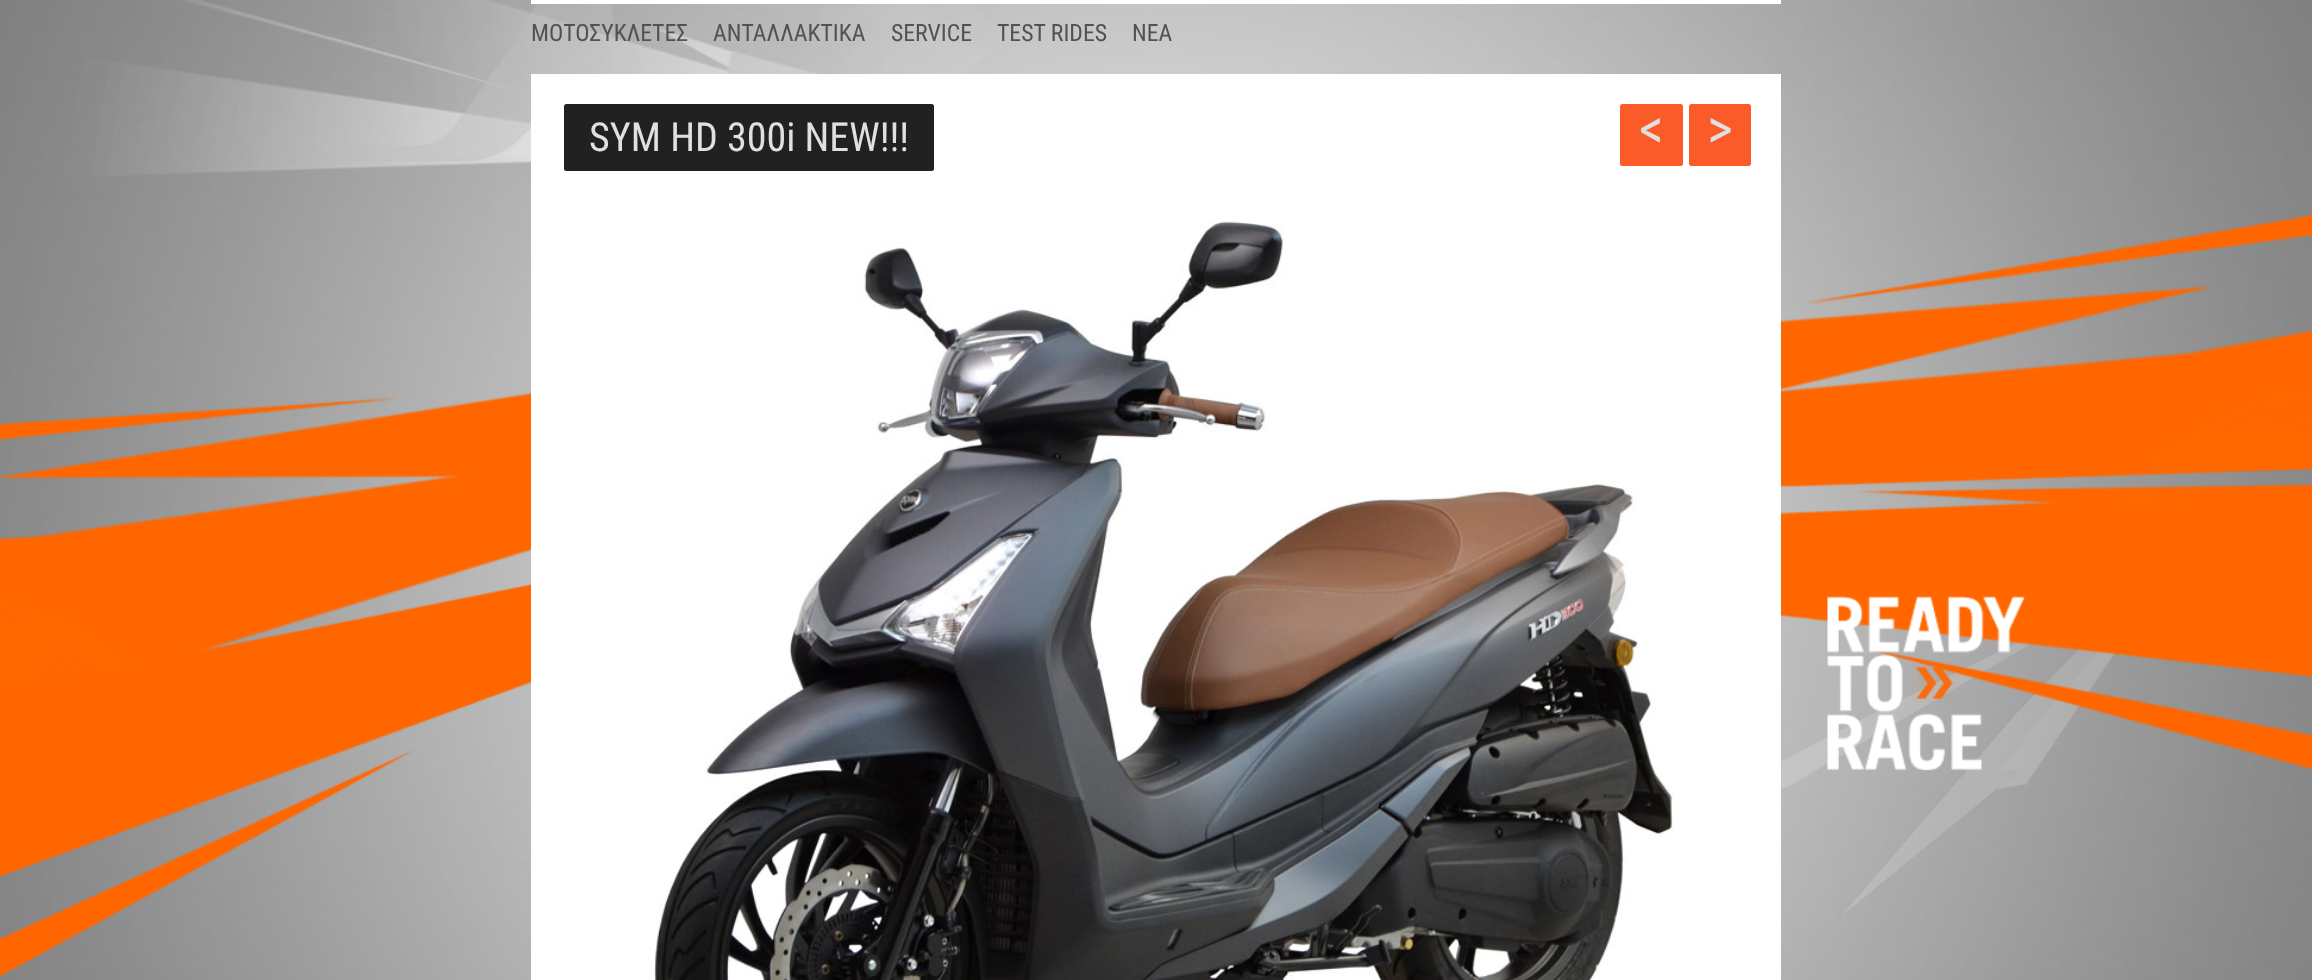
<svg xmlns="http://www.w3.org/2000/svg" width="2312" height="980" viewBox="0 0 2312 980">
  <rect width="100%" height="100%" fill="#ffffff"/>
  <image x="0" y="0" width="2312" height="980" href="img1.png"/>
  <image x="0" y="0" width="2312" height="977" href="img2.png"/>
  <rect x="531" y="0" width="1250" height="4" fill="#ffffff"/>
  <text x="531" y="41" font-family="Roboto Condensed" font-size="23.75" fill="#4d5356">ΜΟΤΟΣΥΚΛΕΤΕΣ</text>
  <text x="713" y="41" font-family="Roboto Condensed" font-size="23.75" fill="#4d5356">ΑΝΤΑΛΛΑΚΤΙΚΑ</text>
  <text x="891" y="41" font-family="Roboto Condensed" font-size="23.75" fill="#4d5356">SERVICE</text>
  <text x="997" y="41" font-family="Roboto Condensed" font-size="23.75" fill="#4d5356">TEST RIDES</text>
  <text x="1132" y="41" font-family="Roboto Condensed" font-size="23.75" fill="#4d5356">ΝΕΑ</text>
  <rect x="531" y="74" width="1250" height="906" fill="#ffffff"/>
  <rect x="564" y="104" width="370" height="67" rx="2.5" fill="#212121"/>
  <text x="589" y="151" font-family="Roboto Condensed" font-size="40" fill="#e0e0e0">SYM HD 300i NEW!!!</text>
  <rect x="1620" y="104" width="63" height="62" rx="2.5" fill="#fb5a29"/>
  <text x="1639" y="148" font-family="Roboto Condensed" font-size="56" fill="#e0e0e0">&lt;</text>
  <rect x="1689" y="104" width="62" height="62" rx="2.5" fill="#fb5a29"/>
  <text x="1707" y="148" font-family="Roboto Condensed" font-size="56" fill="#e0e0e0">&gt;</text>
  <image x="654" y="221" width="1020" height="759" href="img3.png"/>
</svg>
